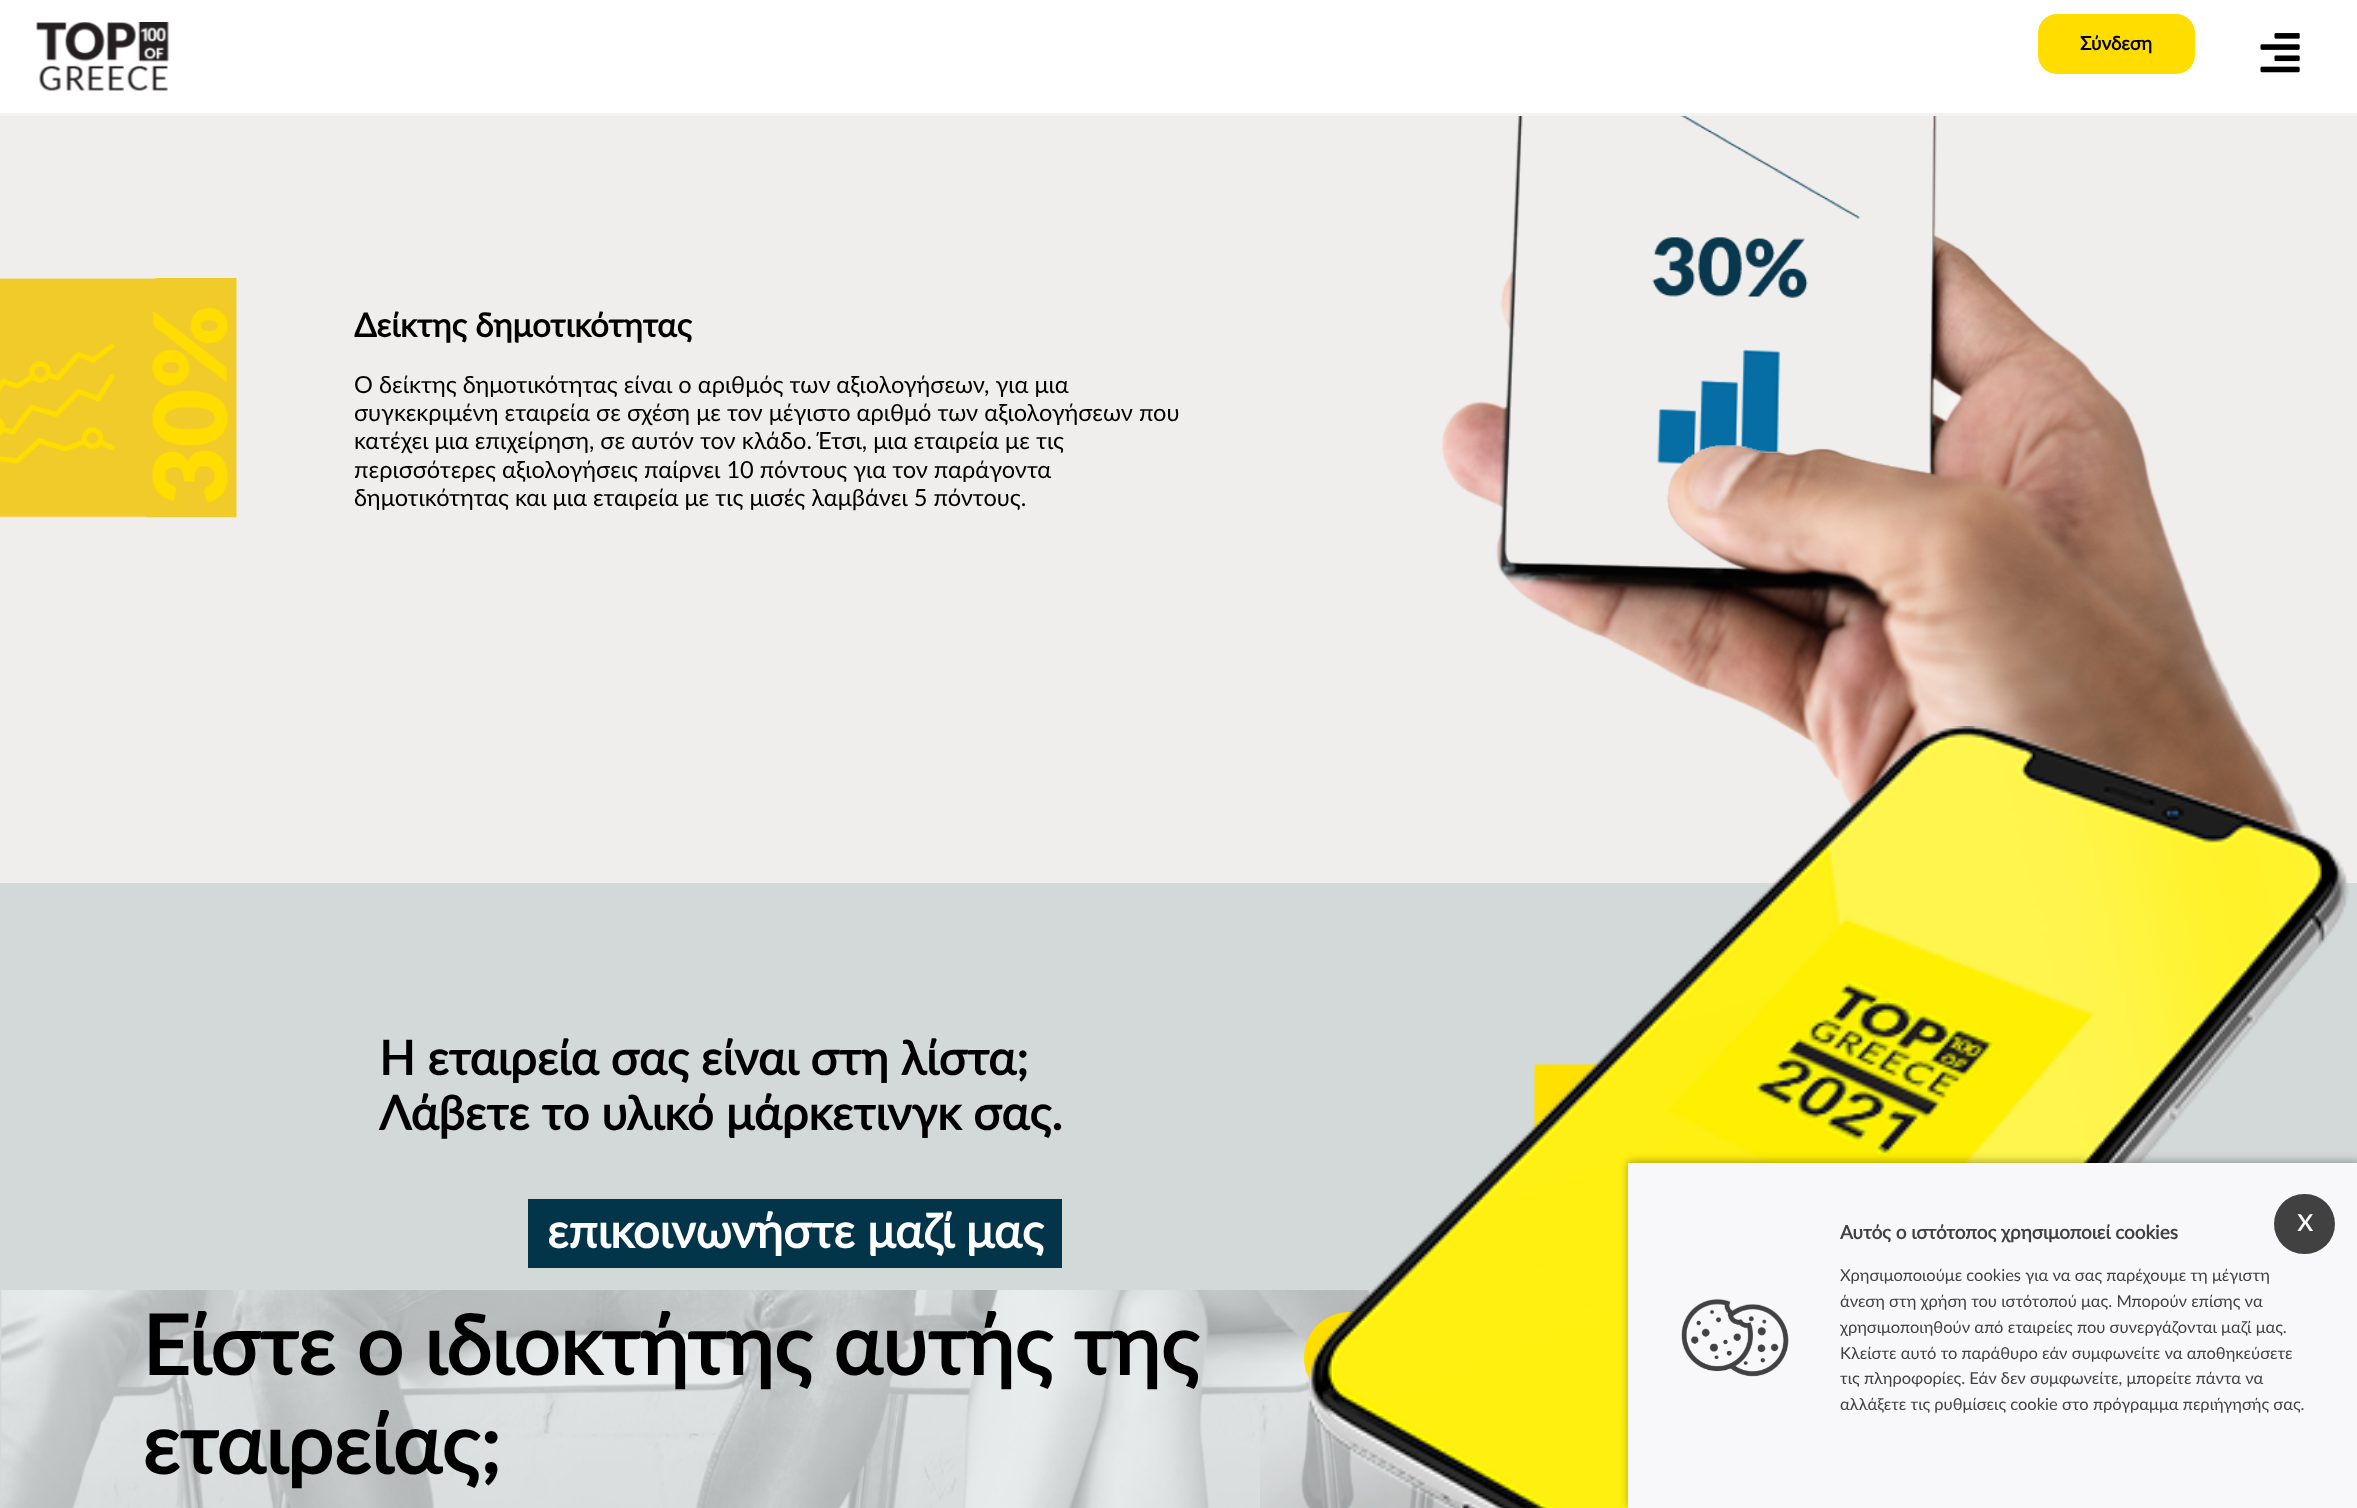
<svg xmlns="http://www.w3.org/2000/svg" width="2357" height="1508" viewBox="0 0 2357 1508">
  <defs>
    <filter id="blur1" x="-50%" y="-200%" width="200%" height="500%"><feGaussianBlur stdDeviation="4"/></filter>
  </defs>
  <rect width="100%" height="100%" fill="#efeeec"/>
  <rect x="0" y="0" width="2357" height="113" fill="#ffffff"/>
  <rect x="0" y="113" width="2357" height="3" fill="#f2f2f2"/>
  <image x="36" y="22" width="133" height="69" href="img1.png"/>
  <rect x="2038" y="14" width="157" height="60" rx="19" fill="#ffdd00"/>
  <text x="2080" y="50" font-family="Lato" font-size="18.9" font-weight="bold" fill="#000000">Σύνδεση</text>
  <image x="2260" y="33" width="40" height="40" href="img2.png"/>
  <image x="0" y="278" width="237" height="240" href="img3.png"/>
  <text x="354" y="337" font-family="Lato" font-size="33" font-weight="bold" fill="#000000">Δείκτης δημοτικότητας</text>
  <text x="354" y="393" font-family="Lato" font-size="23.6" fill="#000000">Ο δείκτης δημοτικότητας είναι ο αριθμός των αξιολογήσεων, για μια</text>
  <text x="354" y="421" font-family="Lato" font-size="23.6" fill="#000000">συγκεκριμένη εταιρεία σε σχέση με τον μέγιστο αριθμό των αξιολογήσεων που</text>
  <text x="354" y="449" font-family="Lato" font-size="23.6" fill="#000000">κατέχει μια επιχείρηση, σε αυτόν τον κλάδο. Έτσι, μια εταιρεία με τις</text>
  <text x="354" y="478" font-family="Lato" font-size="23.6" fill="#000000">περισσότερες αξιολογήσεις παίρνει 10 πόντους για τον παράγοντα</text>
  <text x="354" y="506" font-family="Lato" font-size="23.6" fill="#000000">δημοτικότητας και μια εταιρεία με τις μισές λαμβάνει 5 πόντους.</text>
  <image x="1442" y="116" width="863" height="724" href="img4.png"/>
  <rect x="0" y="1290" width="1460" height="218" fill="#d3d9d9"/>
  <image x="1" y="1290" width="1459" height="218" href="img5.png"/>
  <text x="142" y="1375" font-family="Lato" font-size="82.5" font-weight="bold" fill="#000000">Είστε ο ιδιοκτήτης αυτής της</text>
  <text x="142" y="1474" font-family="Lato" font-size="82.5" font-weight="bold" fill="#000000">εταιρείας;</text>
  <rect x="1304" y="1312" width="379" height="91" rx="45.5" fill="#ffdd00"/>
  <rect x="0" y="883" width="2357" height="407" fill="#d3d9d9"/>
  <image x="1534" y="1064" width="68" height="68" href="img7.png"/>
  <image x="1260" y="726" width="1090" height="782" href="img6.png"/>
  <text x="379" y="1075" font-family="Lato" font-size="47.25" font-weight="bold" fill="#000000">Η εταιρεία σας είναι στη λίστα;</text>
  <text x="379" y="1130" font-family="Lato" font-size="47.25" font-weight="bold" fill="#000000">Λάβετε το υλικό μάρκετινγκ σας.</text>
  <rect x="528" y="1199" width="534" height="69" fill="#02344a"/>
  <text x="547" y="1248" font-family="Lato" font-size="47.25" font-weight="bold" fill="#ffffff">επικοινωνήστε μαζί μας</text>
  <rect x="1628" y="1161" width="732" height="346" fill="#000000" fill-opacity="0.3" filter="url(#blur1)"/>
  <rect x="1628" y="1163" width="729" height="345" fill="#f8f8fb"/>
  <image x="1681" y="1298" width="108" height="79" href="img8.png"/>
  <text x="1840" y="1239" font-family="Lato" font-size="18.9" font-weight="bold" fill="#414141">Αυτός ο ιστότοπος χρησιμοποιεί cookies</text>
  <text x="1840" y="1281" font-family="Lato" font-size="16.5" fill="#414141">Χρησιμοποιούμε cookies για να σας παρέχουμε τη μέγιστη</text>
  <text x="1840" y="1307" font-family="Lato" font-size="16.5" fill="#414141">άνεση στη χρήση του ιστότοπού μας. Μπορούν επίσης να</text>
  <text x="1840" y="1333" font-family="Lato" font-size="16.5" fill="#414141">χρησιμοποιηθούν από εταιρείες που συνεργάζονται μαζί μας.</text>
  <text x="1840" y="1359" font-family="Lato" font-size="16.5" fill="#414141">Κλείστε αυτό το παράθυρο εάν συμφωνείτε να αποθηκεύσετε</text>
  <text x="1840" y="1384" font-family="Lato" font-size="16.5" fill="#414141">τις πληροφορίες. Εάν δεν συμφωνείτε, μπορείτε πάντα να</text>
  <text x="1840" y="1410" font-family="Lato" font-size="16.5" fill="#414141">αλλάξετε τις ρυθμίσεις cookie στο πρόγραμμα περιήγησής σας.</text>
  <rect x="2274" y="1194" width="61" height="60" rx="30" fill="#414141"/>
  <text x="2297" y="1231" font-family="Lato" font-size="33" fill="#ffffff">x</text>
</svg>
